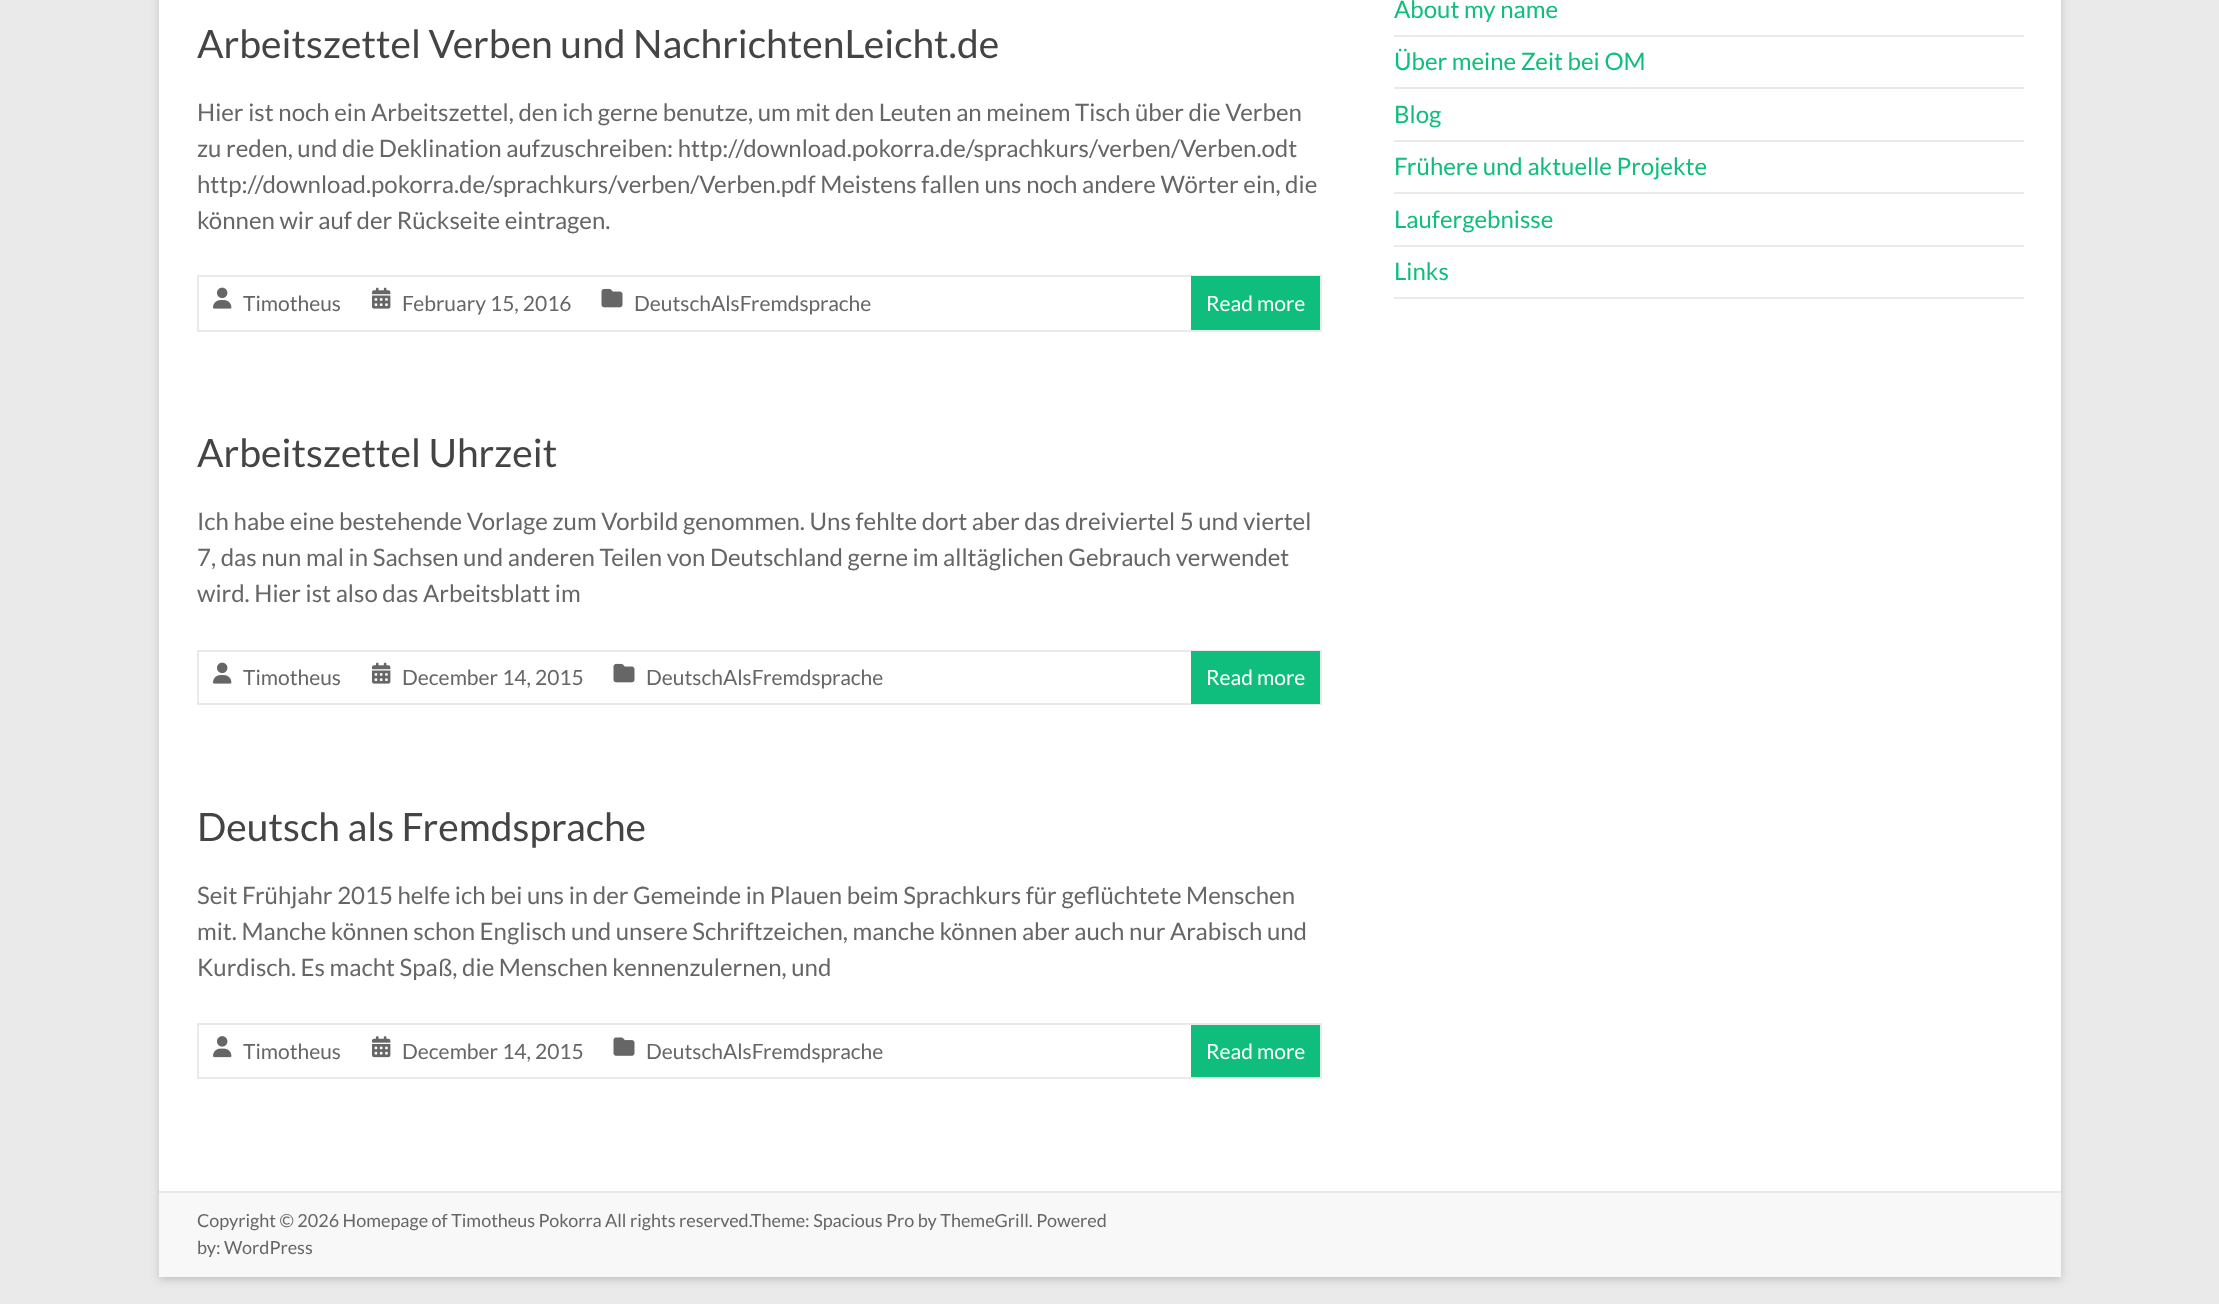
<svg xmlns="http://www.w3.org/2000/svg" width="2219" height="1304" viewBox="0 0 2219 1304">
  <defs>
    <filter id="blur1" x="-50%" y="-200%" width="200%" height="500%"><feGaussianBlur stdDeviation="4.5"/></filter>
  </defs>
  <rect width="100%" height="100%" fill="#eaeaea"/>
  <rect x="159" y="-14" width="1902" height="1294" fill="#646464" fill-opacity="0.3" filter="url(#blur1)"/>
  <rect x="159" y="0" width="1902" height="1191" fill="#ffffff"/>
  <text x="197" y="58" font-family="Lato" font-size="39" fill="#444444">Arbeitszettel Verben und NachrichtenLeicht.de</text>
  <text x="197" y="121" font-family="Lato" font-size="24" fill="#666666">Hier ist noch ein Arbeitszettel, den ich gerne benutze, um mit den Leuten an meinem Tisch über die Verben</text>
  <text x="197" y="157" font-family="Lato" font-size="24" fill="#666666">zu reden, und die Deklination aufzuschreiben: http://download.pokorra.de/sprachkurs/verben/Verben.odt</text>
  <text x="197" y="193" font-family="Lato" font-size="24" fill="#666666">http://download.pokorra.de/sprachkurs/verben/Verben.pdf Meistens fallen uns noch andere Wörter ein, die</text>
  <text x="197" y="229" font-family="Lato" font-size="24" fill="#666666">können wir auf der Rückseite eintragen.</text>
  <rect x="198" y="276" width="1123" height="55" fill="none" stroke="#eaeaea" stroke-width="2"/>
  <image x="213" y="287" width="19" height="22" href="img1.png"/>
  <text x="243" y="311" font-family="Lato" font-size="21" fill="#666666">Timotheus</text>
  <image x="372" y="287" width="19" height="22" href="img2.png"/>
  <text x="402" y="311" font-family="Lato" font-size="21" fill="#666666">February 15, 2016</text>
  <image x="601" y="288" width="22" height="20" href="img3.png"/>
  <text x="634" y="311" font-family="Lato" font-size="21" fill="#666666">DeutschAlsFremdsprache</text>
  <rect x="1191" y="276" width="129" height="54" fill="#0fbe7c"/>
  <text x="1206" y="311" font-family="Lato" font-size="21" fill="#ffffff">Read more</text>
  <text x="197" y="467" font-family="Lato" font-size="39" fill="#444444">Arbeitszettel Uhrzeit</text>
  <text x="197" y="530" font-family="Lato" font-size="24" fill="#666666">Ich habe eine bestehende Vorlage zum Vorbild genommen. Uns fehlte dort aber das dreiviertel 5 und viertel</text>
  <text x="197" y="566" font-family="Lato" font-size="24" fill="#666666">7, das nun mal in Sachsen und anderen Teilen von Deutschland gerne im alltäglichen Gebrauch verwendet</text>
  <text x="197" y="602" font-family="Lato" font-size="24" fill="#666666">wird. Hier ist also das Arbeitsblatt im</text>
  <rect x="198" y="651" width="1123" height="53" fill="none" stroke="#eaeaea" stroke-width="2"/>
  <image x="213" y="662" width="19" height="22" href="img1.png"/>
  <text x="243" y="685" font-family="Lato" font-size="21" fill="#666666">Timotheus</text>
  <image x="372" y="662" width="19" height="22" href="img2.png"/>
  <text x="402" y="685" font-family="Lato" font-size="21" fill="#666666">December 14, 2015</text>
  <image x="613" y="663" width="22" height="20" href="img3.png"/>
  <text x="646" y="685" font-family="Lato" font-size="21" fill="#666666">DeutschAlsFremdsprache</text>
  <rect x="1191" y="651" width="129" height="53" fill="#0fbe7c"/>
  <text x="1206" y="685" font-family="Lato" font-size="21" fill="#ffffff">Read more</text>
  <text x="197" y="841" font-family="Lato" font-size="39" fill="#444444">Deutsch als Fremdsprache</text>
  <text x="197" y="904" font-family="Lato" font-size="24" fill="#666666">Seit Frühjahr 2015 helfe ich bei uns in der Gemeinde in Plauen beim Sprachkurs für geflüchtete Menschen</text>
  <text x="197" y="940" font-family="Lato" font-size="24" fill="#666666">mit. Manche können schon Englisch und unsere Schriftzeichen, manche können aber auch nur Arabisch und</text>
  <text x="197" y="976" font-family="Lato" font-size="24" fill="#666666">Kurdisch. Es macht Spaß, die Menschen kennenzulernen, und</text>
  <rect x="198" y="1024" width="1123" height="54" fill="none" stroke="#eaeaea" stroke-width="2"/>
  <image x="213" y="1036" width="19" height="22" href="img4.png"/>
  <text x="243" y="1059" font-family="Lato" font-size="21" fill="#666666">Timotheus</text>
  <image x="372" y="1036" width="19" height="22" href="img5.png"/>
  <text x="402" y="1059" font-family="Lato" font-size="21" fill="#666666">December 14, 2015</text>
  <image x="613" y="1037" width="22" height="19" href="img6.png"/>
  <text x="646" y="1059" font-family="Lato" font-size="21" fill="#666666">DeutschAlsFremdsprache</text>
  <rect x="1191" y="1025" width="129" height="52" fill="#0fbe7c"/>
  <text x="1206" y="1059" font-family="Lato" font-size="21" fill="#ffffff">Read more</text>
  <rect x="1394" y="35" width="630" height="2" fill="#eaeaea"/>
  <text x="1394" y="18" font-family="Lato" font-size="24" fill="#0fbe7c">About my name</text>
  <rect x="1394" y="87" width="630" height="2" fill="#eaeaea"/>
  <text x="1394" y="70" font-family="Lato" font-size="24" fill="#0fbe7c">Über meine Zeit bei OM</text>
  <rect x="1394" y="140" width="630" height="2" fill="#eaeaea"/>
  <text x="1394" y="123" font-family="Lato" font-size="24" fill="#0fbe7c">Blog</text>
  <rect x="1394" y="192" width="630" height="2" fill="#eaeaea"/>
  <text x="1394" y="175" font-family="Lato" font-size="24" fill="#0fbe7c">Frühere und aktuelle Projekte</text>
  <rect x="1394" y="245" width="630" height="2" fill="#eaeaea"/>
  <text x="1394" y="228" font-family="Lato" font-size="24" fill="#0fbe7c">Laufergebnisse</text>
  <rect x="1394" y="297" width="630" height="2" fill="#eaeaea"/>
  <text x="1394" y="280" font-family="Lato" font-size="24" fill="#0fbe7c">Links</text>
  <rect x="159" y="1193" width="1902" height="84" fill="#f8f8f8"/>
  <rect x="159" y="1191" width="1902" height="2" fill="#eaeaea"/>
  <text x="197" y="1227" font-family="Lato" font-size="18" fill="#666666">Copyright © 2026 Homepage of Timotheus Pokorra All rights reserved.Theme: Spacious Pro by ThemeGrill. Powered</text>
  <text x="197" y="1254" font-family="Lato" font-size="18" fill="#666666">by: WordPress</text>
</svg>
